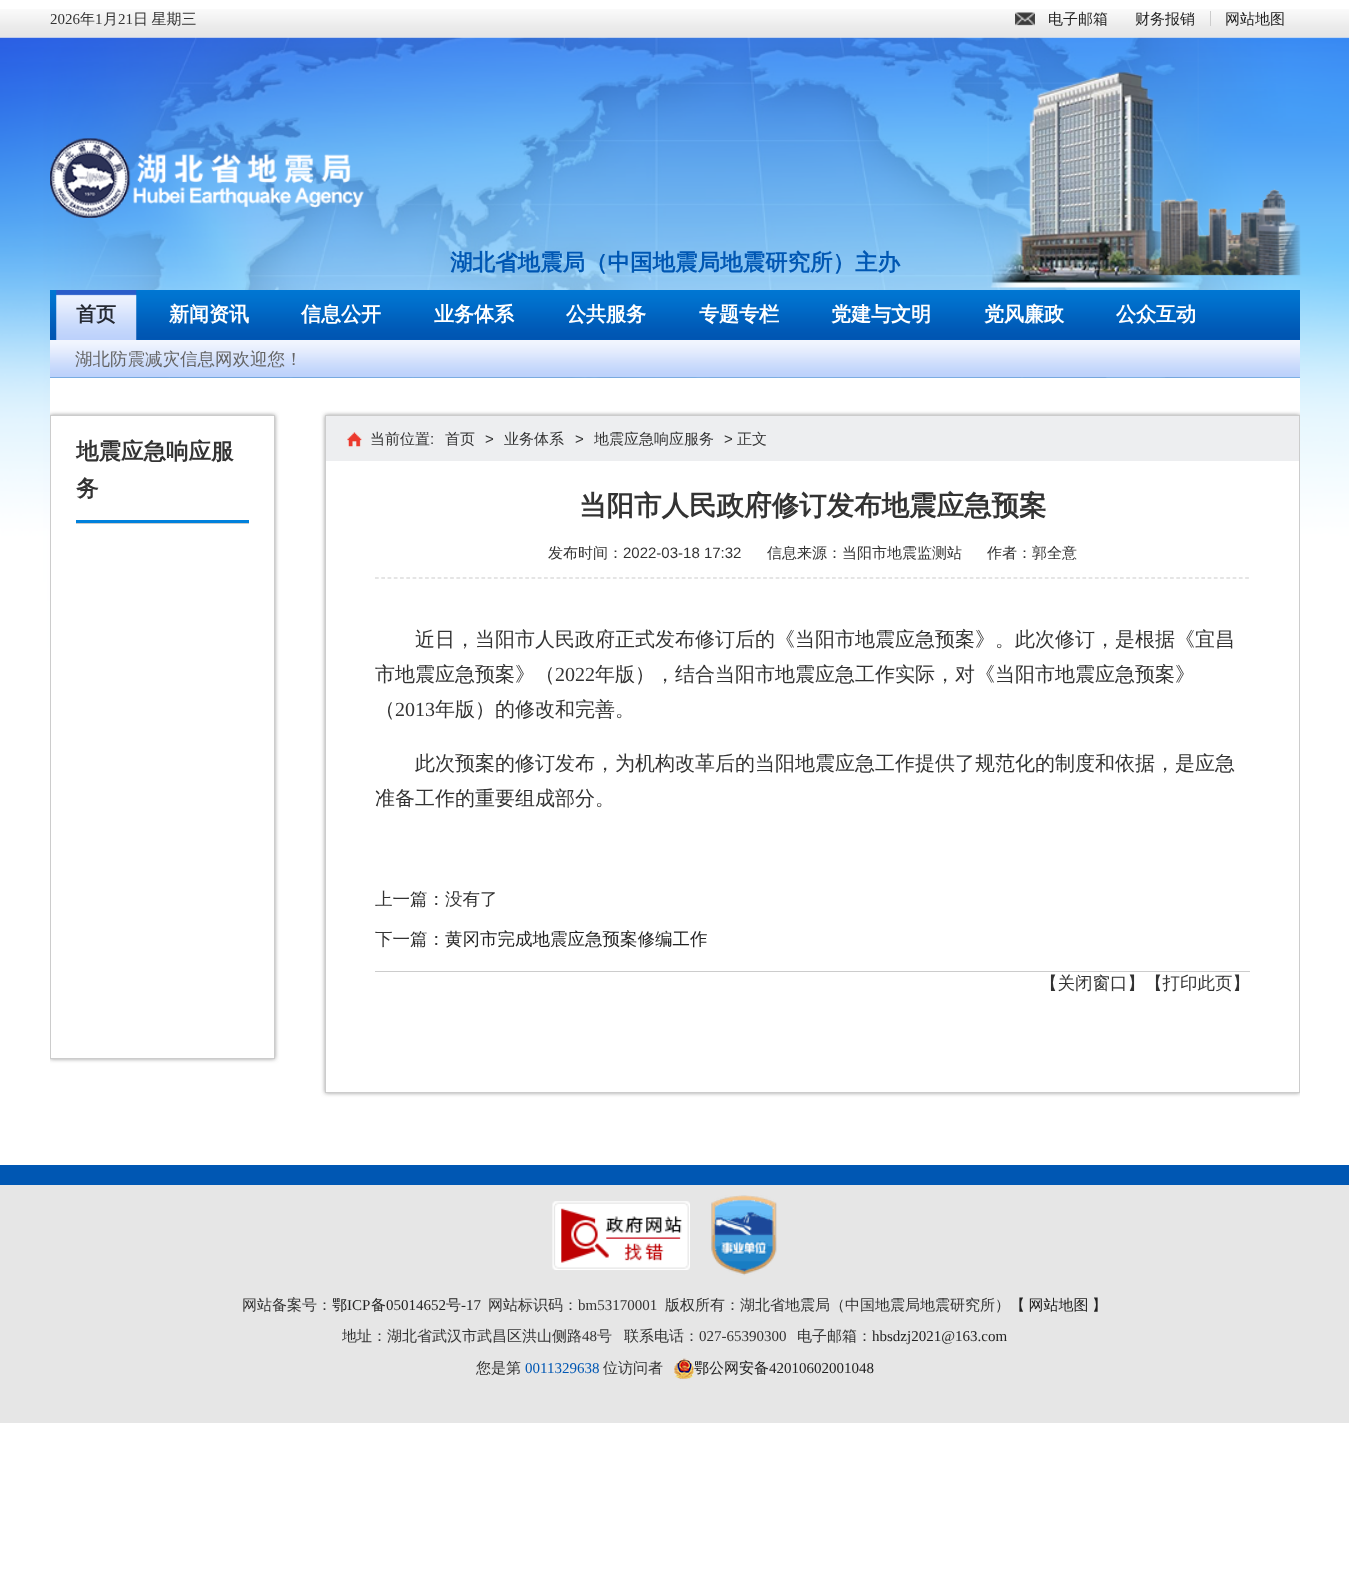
<svg xmlns="http://www.w3.org/2000/svg" width="1349" height="1584" viewBox="0 0 1349 1584">
  <defs>
    <clipPath id="clip1"><rect x="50" y="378" width="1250" height="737"/></clipPath>
    <clipPath id="clip2"><path d="M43 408H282V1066H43ZM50 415H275V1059H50Z" clip-rule="evenodd"/></clipPath>
    <filter id="blur1" x="-50%" y="-200%" width="200%" height="500%"><feGaussianBlur stdDeviation="2"/></filter>
    <clipPath id="clip3"><path d="M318 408H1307V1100H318ZM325 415H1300V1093H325Z" clip-rule="evenodd"/></clipPath>
  </defs>
  <rect width="100%" height="100%" fill="#ffffff"/>
  <image x="0" y="37" width="1349" height="722" href="img1.png"/>
  <image x="0" y="9" width="1349" height="29" href="img2.png"/>
  <text x="50" y="24" font-family="Liberation Serif" font-size="15" fill="#333333">2026</text>
  <text x="80" y="24" font-family="WenQuanYi Zen Hei" font-size="15" font-weight="500" fill="#333333">年</text>
  <text x="95" y="24" font-family="Liberation Serif" font-size="15" fill="#333333">1</text>
  <text x="103" y="24" font-family="WenQuanYi Zen Hei" font-size="15" font-weight="500" fill="#333333">月</text>
  <text x="118" y="24" font-family="Liberation Serif" font-size="15" fill="#333333">21</text>
  <text x="133" y="24" word-spacing="-1" font-family="WenQuanYi Zen Hei" font-size="15" font-weight="500" fill="#333333">日 星期三</text>
  <image x="1015" y="12" width="20" height="14" href="img3.png"/>
  <text x="1048" y="24" font-family="WenQuanYi Zen Hei" font-size="15" font-weight="500" fill="#222222">电子邮箱</text>
  <text x="1135" y="24" font-family="WenQuanYi Zen Hei" font-size="15" font-weight="500" fill="#222222">财务报销</text>
  <rect x="1210" y="11" width="1" height="15" fill="#cccccc"/>
  <text x="1225" y="24" font-family="WenQuanYi Zen Hei" font-size="15" font-weight="500" fill="#222222">网站地图</text>
  <image x="50" y="138" width="314" height="80" href="img4.png"/>
  <text x="450" y="270" font-family="WenQuanYi Zen Hei" font-size="22.5" font-weight="bold" fill="#0057b3">湖北省地震局（中国地震局地震研究所）主办</text>
  <image x="50" y="291" width="1250" height="87" href="img5.png"/>
  <rect x="50" y="290" width="1250" height="1" fill="#0077d3"/>
  <image x="56" y="290" width="81" height="50" href="img6.png"/>
  <text x="76" y="321" font-family="WenQuanYi Zen Hei" font-size="20" font-weight="bold" fill="#262a33">首页</text>
  <image x="50" y="340" width="1250" height="38" href="img7.png"/>
  <text x="75" y="365" font-family="WenQuanYi Zen Hei" font-size="17.5" font-weight="500" fill="#656565">湖北防震减灾信息网欢迎您！</text>
  <text x="169" y="321" font-family="WenQuanYi Zen Hei" font-size="20" font-weight="bold" fill="#ffffff">新闻资讯</text>
  <text x="301" y="321" font-family="WenQuanYi Zen Hei" font-size="20" font-weight="bold" fill="#ffffff">信息公开</text>
  <text x="434" y="321" font-family="WenQuanYi Zen Hei" font-size="20" font-weight="bold" fill="#ffffff">业务体系</text>
  <text x="566" y="321" font-family="WenQuanYi Zen Hei" font-size="20" font-weight="bold" fill="#ffffff">公共服务</text>
  <text x="699" y="321" font-family="WenQuanYi Zen Hei" font-size="20" font-weight="bold" fill="#ffffff">专题专栏</text>
  <text x="831" y="321" font-family="WenQuanYi Zen Hei" font-size="20" font-weight="bold" fill="#ffffff">党建与文明</text>
  <text x="984" y="321" font-family="WenQuanYi Zen Hei" font-size="20" font-weight="bold" fill="#ffffff">党风廉政</text>
  <text x="1116" y="321" font-family="WenQuanYi Zen Hei" font-size="20" font-weight="bold" fill="#ffffff">公众互动</text>
  <rect x="50" y="378" width="1250" height="381" fill="#ffffff"/>
  <g clip-path="url(#clip1)">
    <g clip-path="url(#clip2)">
      <rect x="50" y="415" width="225" height="644" fill="#999999" filter="url(#blur1)"/>
    </g>
  </g>
  <rect x="50.5" y="415.5" width="224" height="643" fill="none" stroke="#cccccc"/>
  <rect x="76" y="523" width="173" height="1" fill="#cccccc"/>
  <rect x="76" y="520" width="173" height="3" fill="#0081dc"/>
  <text x="76" y="459" font-family="WenQuanYi Zen Hei" font-size="22.5" font-weight="bold" fill="#333333">地震应急响应服</text>
  <text x="76" y="496" font-family="WenQuanYi Zen Hei" font-size="22.5" font-weight="bold" fill="#333333">务</text>
  <g clip-path="url(#clip1)">
    <g clip-path="url(#clip3)">
      <rect x="325" y="415" width="975" height="678" fill="#999999" filter="url(#blur1)"/>
    </g>
  </g>
  <rect x="325.5" y="415.5" width="974" height="677" fill="none" stroke="#cccccc"/>
  <rect x="326" y="416" width="973" height="45" fill="#edeef0"/>
  <image x="347" y="432" width="15" height="15" href="img8.png"/>
  <text x="370" y="444" font-family="WenQuanYi Zen Hei" font-size="15" font-weight="500" fill="#333333">当前位置</text>
  <text x="430" y="444" font-family="Liberation Sans" font-size="15" fill="#333333">:</text>
  <text x="445" y="444" font-family="WenQuanYi Zen Hei" font-size="15" font-weight="500" fill="#333333">首页</text>
  <text x="485" y="444" font-family="Liberation Sans" font-size="15" fill="#333333">&gt;</text>
  <text x="504" y="444" font-family="WenQuanYi Zen Hei" font-size="15" font-weight="500" fill="#333333">业务体系</text>
  <text x="575" y="444" font-family="Liberation Sans" font-size="15" fill="#333333">&gt;</text>
  <text x="594" y="444" font-family="WenQuanYi Zen Hei" font-size="15" font-weight="500" fill="#333333">地震应急响应服务</text>
  <text x="724" y="444" font-family="Liberation Sans" font-size="15" fill="#333333">&gt;</text>
  <text x="737" y="444" font-family="WenQuanYi Zen Hei" font-size="15" font-weight="500" fill="#333333">正文</text>
  <text x="579" y="515" font-family="WenQuanYi Zen Hei" font-size="27.5" font-weight="bold" fill="#333333">当阳市人民政府修订发布地震应急预案</text>
  <path d="M375 578H1250" fill="none" stroke="#cccccc" stroke-width="1.2" stroke-dasharray="3.75 2.51"/>
  <text x="548" y="558" font-family="WenQuanYi Zen Hei" font-size="15" font-weight="500" fill="#333333">发布时间：</text>
  <text x="623" y="558" font-family="Liberation Sans" font-size="15" fill="#333333">2022-03-18 17:32</text>
  <text x="767" y="558" font-family="WenQuanYi Zen Hei" font-size="15" font-weight="500" fill="#333333">信息来源：当阳市地震监测站</text>
  <text x="987" y="558" font-family="WenQuanYi Zen Hei" font-size="15" font-weight="500" fill="#333333">作者：郭全意</text>
  <text x="415" y="646" font-family="WenQuanYi Zen Hei" font-size="20" font-weight="500" fill="#333333">近日，当阳市人民政府正式发布修订后的《当阳市地震应急预案》。此次修订，是根据《宜昌</text>
  <text x="375" y="681" font-family="WenQuanYi Zen Hei" font-size="20" font-weight="500" fill="#333333">市地震应急预案》（</text>
  <text x="555" y="681" font-family="Liberation Serif" font-size="20" fill="#333333">2022</text>
  <text x="595" y="681" font-family="WenQuanYi Zen Hei" font-size="20" font-weight="500" fill="#333333">年版），结合当阳市地震应急工作实际，对《当阳市地震应急预案》</text>
  <text x="375" y="716" font-family="WenQuanYi Zen Hei" font-size="20" font-weight="500" fill="#333333">（</text>
  <text x="395" y="716" font-family="Liberation Serif" font-size="20" fill="#333333">2013</text>
  <text x="435" y="716" font-family="WenQuanYi Zen Hei" font-size="20" font-weight="500" fill="#333333">年版）的修改和完善。</text>
  <text x="415" y="770" font-family="WenQuanYi Zen Hei" font-size="20" font-weight="500" fill="#333333">此次预案的修订发布，为机构改革后的当阳地震应急工作提供了规范化的制度和依据，是应急</text>
  <text x="375" y="805" font-family="WenQuanYi Zen Hei" font-size="20" font-weight="500" fill="#333333">准备工作的重要组成部分。</text>
  <rect x="375" y="971" width="875" height="1" fill="#cccccc"/>
  <text x="375" y="905" font-family="WenQuanYi Zen Hei" font-size="17.5" font-weight="500" fill="#333333">上一篇：没有了</text>
  <text x="375" y="945" font-family="WenQuanYi Zen Hei" font-size="17.5" font-weight="500" fill="#333333">下一篇：</text>
  <text x="445" y="945" font-family="WenQuanYi Zen Hei" font-size="17.5" font-weight="500" fill="#222222">黄冈市完成地震应急预案修编工作</text>
  <text x="1040" y="989" font-family="WenQuanYi Zen Hei" font-size="17.5" font-weight="500" fill="#333333">【关闭窗口】【打印此页】</text>
  <rect x="0" y="1185" width="1349" height="238" fill="#e6e6e6"/>
  <rect x="0" y="1165" width="1349" height="20" fill="#0057b3"/>
  <image x="552" y="1201" width="138" height="69" href="img9.png"/>
  <image x="711" y="1195" width="66" height="81" href="img10.png"/>
  <text x="242" y="1310" font-family="WenQuanYi Zen Hei" font-size="15" font-weight="500" fill="#333333">网站备案号：</text>
  <text x="332" y="1310" font-family="WenQuanYi Zen Hei" font-size="15" font-weight="500" fill="#222222">鄂</text>
  <text x="347" y="1310" font-family="Liberation Serif" font-size="15" fill="#222222">ICP</text>
  <text x="371" y="1310" font-family="WenQuanYi Zen Hei" font-size="15" font-weight="500" fill="#222222">备</text>
  <text x="386" y="1310" font-family="Liberation Serif" font-size="15" fill="#222222">05014652</text>
  <text x="446" y="1310" font-family="WenQuanYi Zen Hei" font-size="15" font-weight="500" fill="#222222">号</text>
  <text x="461" y="1310" font-family="Liberation Serif" font-size="15" fill="#222222">-17</text>
  <text x="488" y="1310" font-family="WenQuanYi Zen Hei" font-size="15" font-weight="500" fill="#333333">网站标识码：</text>
  <text x="578" y="1310" font-family="Liberation Serif" font-size="15" fill="#333333">bm53170001</text>
  <text x="665" y="1310" font-family="WenQuanYi Zen Hei" font-size="15" font-weight="500" fill="#333333">版权所有：湖北省地震局（中国地震局地震研究所）</text>
  <text x="1010" y="1310" word-spacing="-1" font-family="WenQuanYi Zen Hei" font-size="15" font-weight="500" fill="#222222">【 网站地图 】</text>
  <text x="342" y="1341" font-family="WenQuanYi Zen Hei" font-size="15" font-weight="500" fill="#333333">地址：湖北省武汉市武昌区洪山侧路</text>
  <text x="582" y="1341" font-family="Liberation Serif" font-size="15" fill="#333333">48</text>
  <text x="597" y="1341" font-family="WenQuanYi Zen Hei" font-size="15" font-weight="500" fill="#333333">号</text>
  <text x="624" y="1341" font-family="WenQuanYi Zen Hei" font-size="15" font-weight="500" fill="#333333">联系电话：</text>
  <text x="699" y="1341" font-family="Liberation Serif" font-size="15" fill="#333333">027-65390300</text>
  <text x="797" y="1341" font-family="WenQuanYi Zen Hei" font-size="15" font-weight="500" fill="#333333">电子邮箱：</text>
  <text x="872" y="1341" font-family="Liberation Serif" font-size="15" fill="#222222">hbsdzj2021@163.com</text>
  <text x="476" y="1373" font-family="WenQuanYi Zen Hei" font-size="15" font-weight="500" fill="#333333">您是第</text>
  <text x="525" y="1373" font-family="Liberation Serif" font-size="15" fill="#0057b3">0011329638</text>
  <text x="603" y="1373" font-family="WenQuanYi Zen Hei" font-size="15" font-weight="500" fill="#333333">位访问者</text>
  <image x="674" y="1358" width="20" height="21" href="img11.png"/>
  <text x="694" y="1373" font-family="WenQuanYi Zen Hei" font-size="15" font-weight="500" fill="#222222">鄂公网安备</text>
  <text x="769" y="1373" font-family="Liberation Serif" font-size="15" fill="#222222">42010602001048</text>
</svg>
